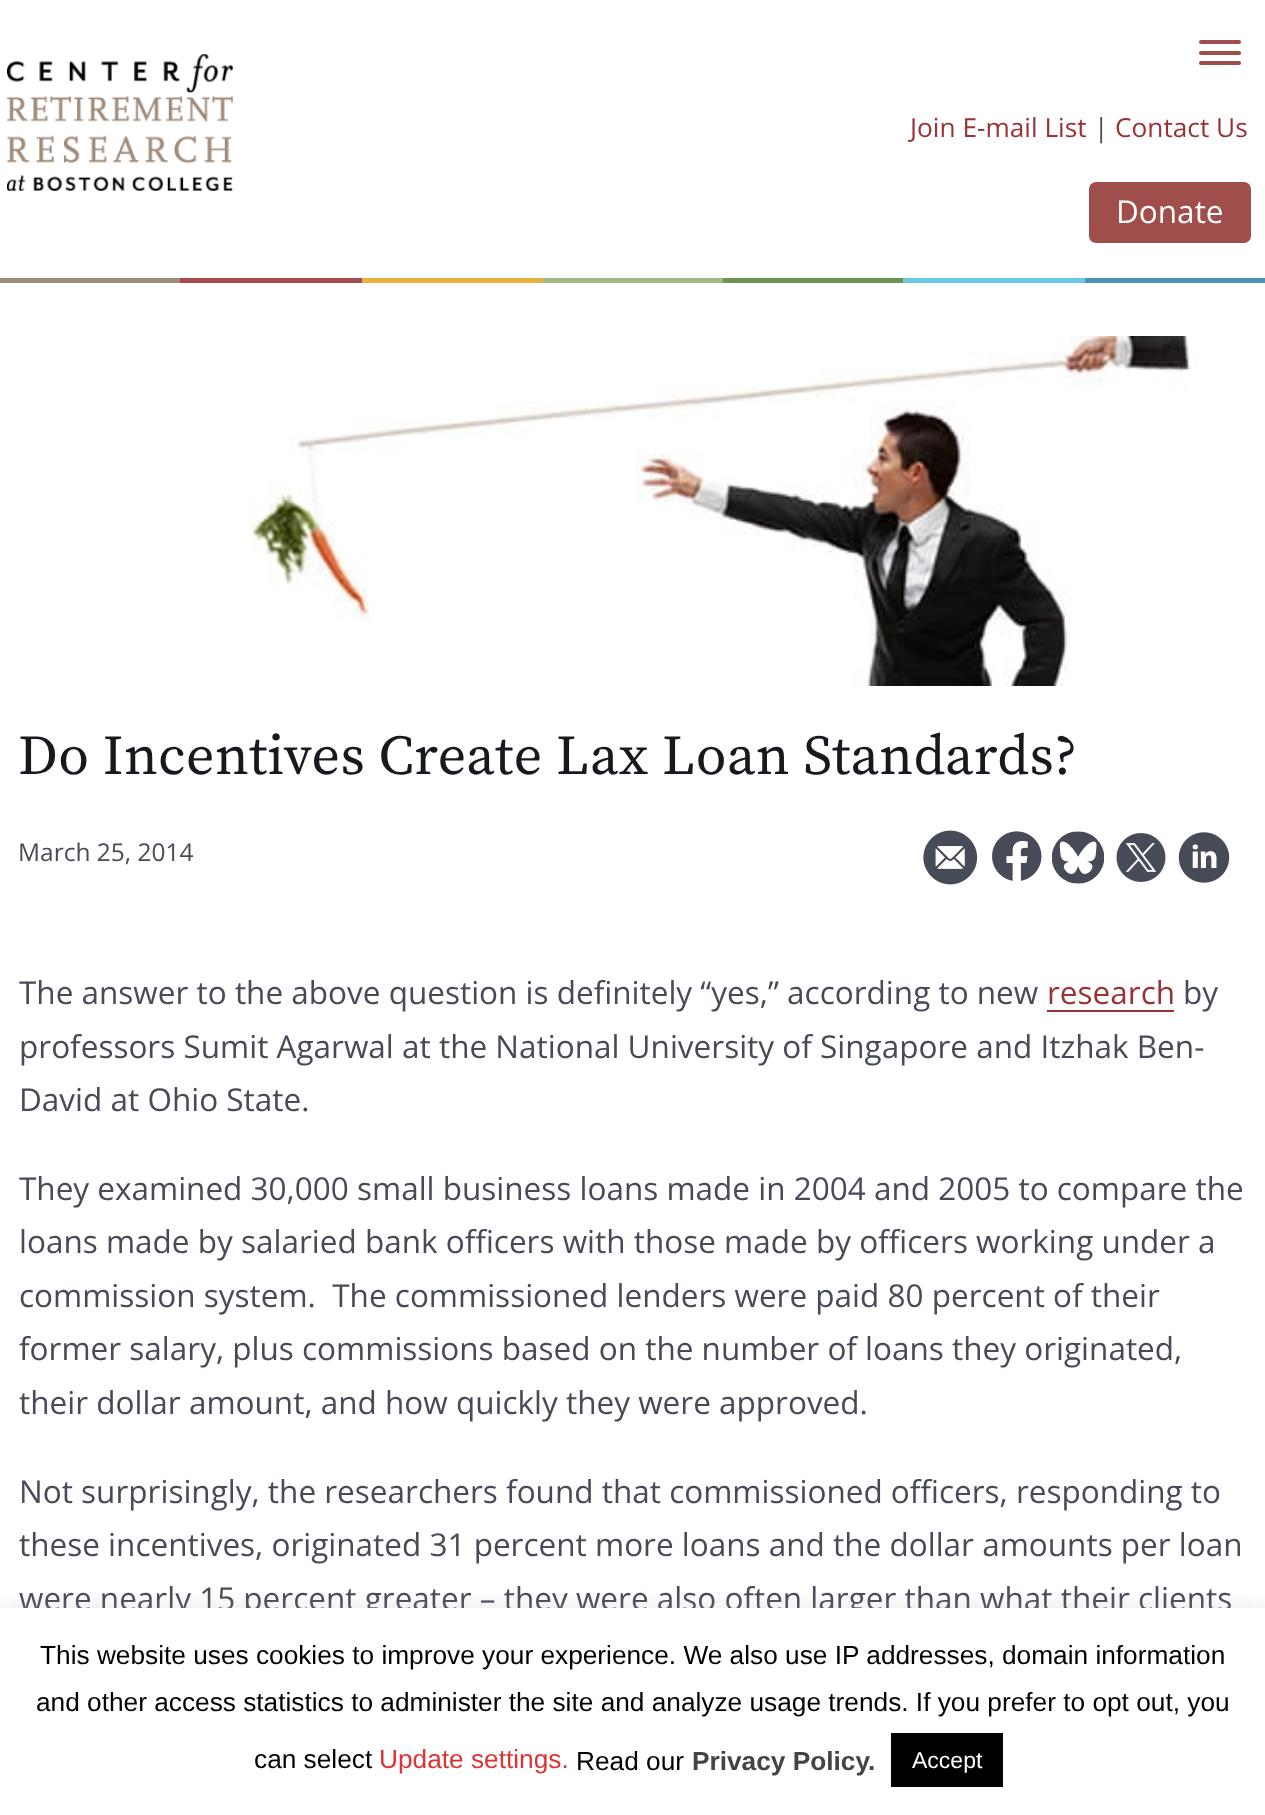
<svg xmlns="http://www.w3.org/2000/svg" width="1265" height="1815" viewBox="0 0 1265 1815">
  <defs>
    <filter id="blur1" x="-50%" y="-200%" width="200%" height="500%"><feGaussianBlur stdDeviation="9"/></filter>
  </defs>
  <rect width="100%" height="100%" fill="#ffffff"/>
  <rect x="1199" y="40" width="42" height="4" rx="2" fill="#9f4e4b"/>
  <rect x="1199" y="51" width="42" height="4" rx="2" fill="#9f4e4b"/>
  <rect x="1199" y="61" width="42" height="4" rx="2" fill="#9f4e4b"/>
  <image x="7" y="54" width="226" height="137" href="img1.png"/>
  <text x="910" y="137" font-family="Open Sans" font-size="26.25" fill="#993333">Join E-mail List</text>
  <text x="1094" y="137" font-family="Open Sans" font-size="26.25" fill="#474a57">|</text>
  <text x="1115" y="137" font-family="Open Sans" font-size="26.25" fill="#993333">Contact Us</text>
  <rect x="1089" y="182" width="162" height="61" rx="7" fill="#9f4e4b"/>
  <text x="1116" y="223" font-family="Open Sans" font-size="31.5" fill="#ffffff">Donate</text>
  <rect x="0" y="278" width="180" height="5" fill="#9f8b79"/>
  <rect x="180" y="278" width="182" height="5" fill="#a64c4c"/>
  <rect x="362" y="278" width="181" height="5" fill="#e8b240"/>
  <rect x="543" y="278" width="180" height="5" fill="#9dba87"/>
  <rect x="723" y="278" width="180" height="5" fill="#6e9254"/>
  <rect x="903" y="278" width="182" height="5" fill="#6acae1"/>
  <rect x="1085" y="278" width="180" height="5" fill="#4c94b7"/>
  <image x="249" y="336" width="949" height="350" href="img2.png"/>
  <text x="18" y="774" font-family="Source Serif Pro" font-size="56" letter-spacing="0.4" fill="#18191f">Do Incentives Create Lax Loan Standards?</text>
  <text x="18" y="861" font-family="Open Sans" font-size="24.5" fill="#474a57">March 25, 2014</text>
  <image x="923" y="830" width="55" height="55" href="img3.png"/>
  <image x="992" y="831" width="50" height="50" href="img4.png"/>
  <image x="1052" y="831" width="52" height="53" href="img5.png"/>
  <image x="1116" y="833" width="50" height="49" href="img6.png"/>
  <image x="1178" y="832" width="52" height="51" href="img7.png"/>
  <text x="19" y="1004" font-family="Open Sans" font-size="31.5" fill="#474a57">The answer to the above question is definitely “yes,” according to new</text>
  <text x="1047" y="1004" font-family="Open Sans" font-size="31.5" fill="#993333">research</text>
  <rect x="1047" y="1010" width="127" height="2" fill="#993333"/>
  <text x="1183" y="1004" font-family="Open Sans" font-size="31.5" fill="#474a57">by</text>
  <text x="19" y="1058" font-family="Open Sans" font-size="31.5" fill="#474a57">professors Sumit Agarwal at the National University of Singapore and Itzhak Ben-</text>
  <text x="19" y="1111" font-family="Open Sans" font-size="31.5" fill="#474a57">David at Ohio State.</text>
  <text x="19" y="1200" font-family="Open Sans" font-size="31.5" fill="#474a57">They examined 30,000 small business loans made in 2004 and 2005 to compare the</text>
  <text x="19" y="1253" font-family="Open Sans" font-size="31.5" fill="#474a57">loans made by salaried bank officers with those made by officers working under a</text>
  <text x="19" y="1307" font-family="Open Sans" font-size="31.5" fill="#474a57" xml:space="preserve">commission system.  The commissioned lenders were paid 80 percent of their</text>
  <text x="19" y="1360" font-family="Open Sans" font-size="31.5" fill="#474a57">former salary, plus commissions based on the number of loans they originated,</text>
  <text x="19" y="1414" font-family="Open Sans" font-size="31.5" fill="#474a57">their dollar amount, and how quickly they were approved.</text>
  <text x="19" y="1503" font-family="Open Sans" font-size="31.5" fill="#474a57">Not surprisingly, the researchers found that commissioned officers, responding to</text>
  <text x="19" y="1556" font-family="Open Sans" font-size="31.5" fill="#474a57">these incentives, originated 31 percent more loans and the dollar amounts per loan</text>
  <text x="19" y="1610" font-family="Open Sans" font-size="31.5" fill="#474a57">were nearly 15 percent greater – they were also often larger than what their clients</text>
  <rect x="0" y="1607" width="1265" height="208" fill="#acabab" fill-opacity="0.3" filter="url(#blur1)"/>
  <rect x="0" y="1608" width="1265" height="207" fill="#ffffff"/>
  <text x="40" y="1664" font-family="Liberation Sans" font-size="26.25" fill="#000000">This website uses cookies to improve your experience. We also use IP addresses, domain information</text>
  <text x="36" y="1711" font-family="Liberation Sans" font-size="26.25" fill="#000000">and other access statistics to administer the site and analyze usage trends. If you prefer to opt out, you</text>
  <text x="254" y="1768" font-family="Liberation Sans" font-size="26.25" fill="#000000">can select</text>
  <text x="379" y="1768" font-family="Liberation Sans" font-size="26.25" fill="#dd3333">Update settings.</text>
  <text x="576" y="1770" font-family="Liberation Sans" font-size="26.25" fill="#000000">Read our</text>
  <text x="692" y="1770" font-family="Liberation Sans" font-size="26.25" font-weight="bold" fill="#444444">Privacy Policy.</text>
  <rect x="891" y="1733" width="112" height="54" fill="#000000"/>
  <text x="912" y="1768" font-family="Liberation Sans" font-size="23" fill="#ffffff">Accept</text>
</svg>
